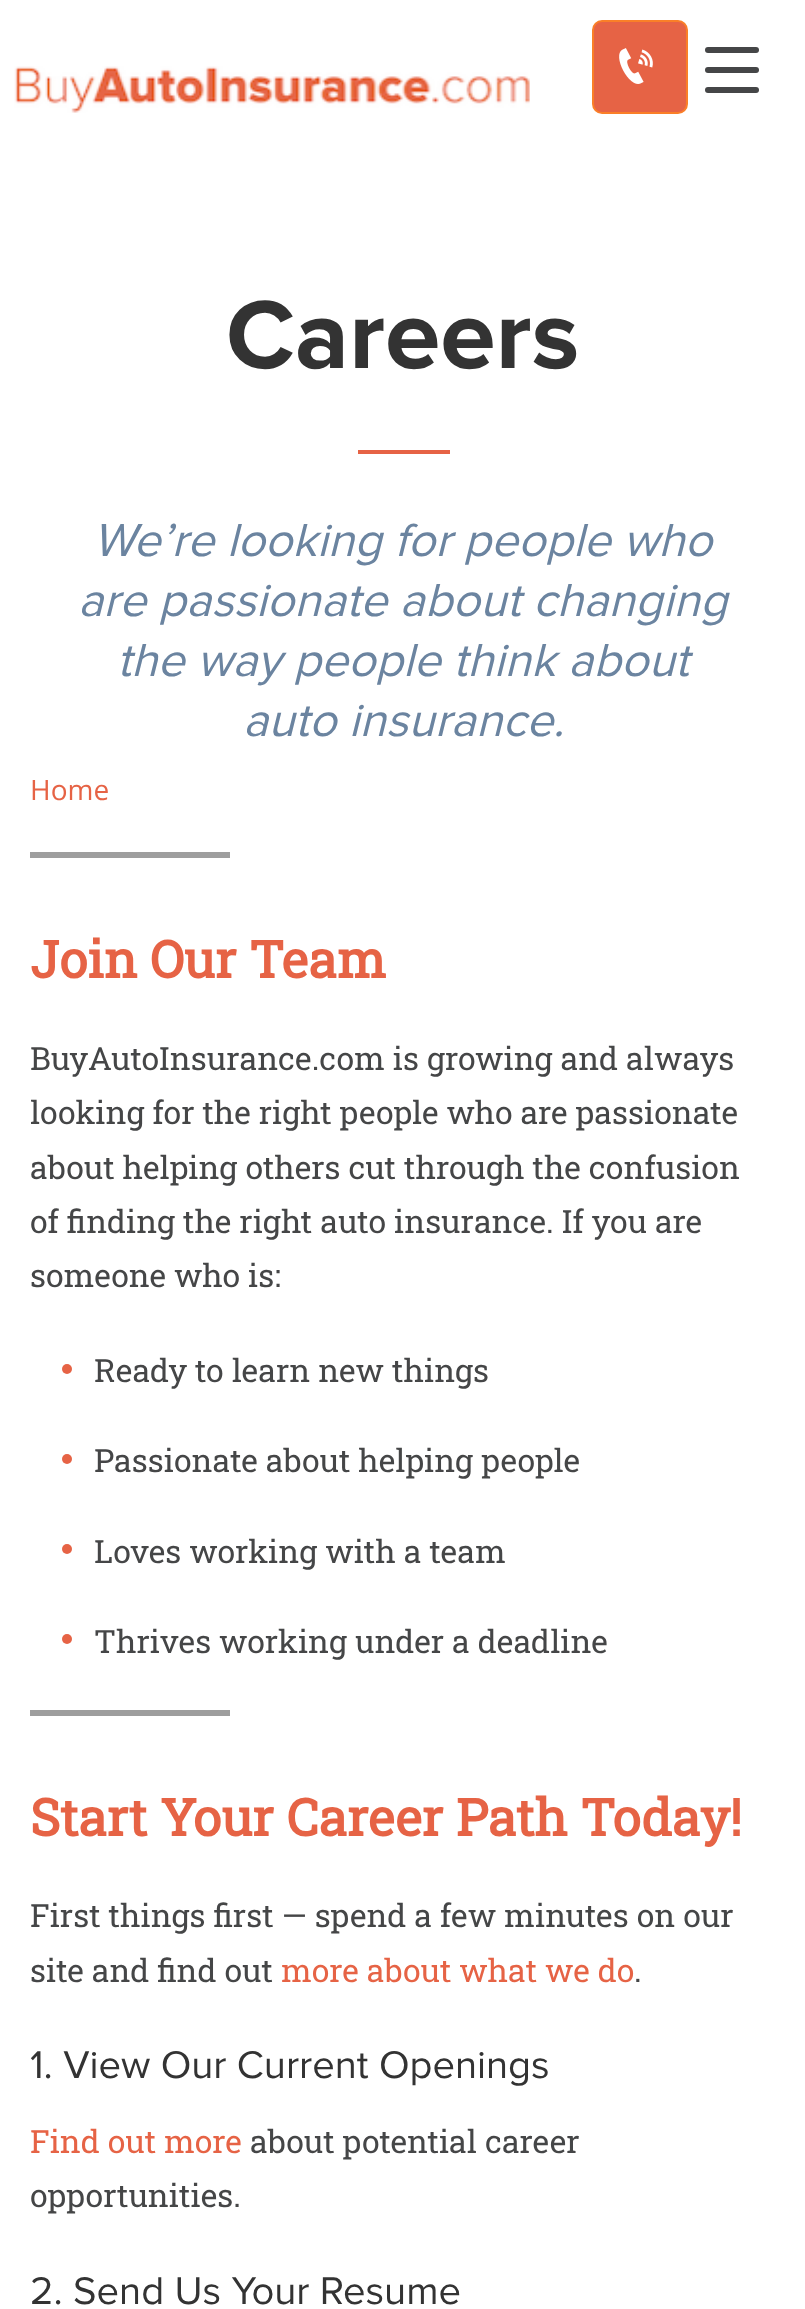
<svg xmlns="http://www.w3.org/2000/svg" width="805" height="2309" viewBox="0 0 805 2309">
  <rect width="100%" height="100%" fill="#ffffff"/>
  <image x="14" y="66" width="516" height="47" href="img1.png"/>
  <rect x="593" y="21" width="94" height="92" rx="9" fill="#e66345" stroke="#fa7f28" stroke-width="2"/>
  <image x="619" y="48" width="34" height="36" href="img2.png"/>
  <rect x="705" y="47" width="54" height="6" rx="3" fill="#454647"/>
  <rect x="705" y="67" width="54" height="6" rx="3" fill="#454647"/>
  <rect x="705" y="87" width="54" height="6" rx="3" fill="#454647"/>
  <text x="226" y="368" font-family="Proxima Nova" font-size="100" font-weight="bold" fill="#333333">Careers</text>
  <rect x="358" y="450" width="92" height="4" fill="#e66345"/>
  <text x="93" y="556" font-family="Proxima Nova" font-size="48" font-style="italic" fill="#6b84a0">We’re looking for people who</text>
  <text x="78" y="616" font-family="Proxima Nova" font-size="48" font-style="italic" fill="#6b84a0">are passionate about changing</text>
  <text x="117" y="676" font-family="Proxima Nova" font-size="48" font-style="italic" fill="#6b84a0">the way people think about</text>
  <text x="243" y="736" font-family="Proxima Nova" font-size="48" font-style="italic" fill="#6b84a0">auto insurance.</text>
  <text x="30" y="800" font-family="Open Sans" font-size="28" fill="#e66345">Home</text>
  <rect x="30" y="852" width="200" height="6" fill="#9e9e9e"/>
  <text x="30" y="978" font-family="Roboto Slab" font-size="51.25" font-weight="bold" fill="#e66345">Join Our Team</text>
  <text x="30" y="1070" font-family="Roboto Slab" font-size="32" fill="#454647">BuyAutoInsurance.com is growing and always</text>
  <text x="30" y="1124" font-family="Roboto Slab" font-size="32" fill="#454647">looking for the right people who are passionate</text>
  <text x="30" y="1179" font-family="Roboto Slab" font-size="32" fill="#454647">about helping others cut through the confusion</text>
  <text x="30" y="1233" font-family="Roboto Slab" font-size="32" fill="#454647">of finding the right auto insurance. If you are</text>
  <text x="30" y="1287" font-family="Roboto Slab" font-size="32" fill="#454647">someone who is:</text>
  <circle cx="67" cy="1369" r="5" fill="#e66345"/>
  <text x="94" y="1382" font-family="Roboto Slab" font-size="32" fill="#454647">Ready to learn new things</text>
  <circle cx="67" cy="1459" r="5" fill="#e66345"/>
  <text x="94" y="1472" font-family="Roboto Slab" font-size="32" fill="#454647">Passionate about helping people</text>
  <circle cx="67" cy="1549" r="5" fill="#e66345"/>
  <text x="94" y="1563" font-family="Roboto Slab" font-size="32" fill="#454647">Loves working with a team</text>
  <circle cx="67" cy="1639" r="5" fill="#e66345"/>
  <text x="94" y="1653" font-family="Roboto Slab" font-size="32" fill="#454647">Thrives working under a deadline</text>
  <rect x="30" y="1710" width="200" height="6" fill="#9e9e9e"/>
  <text x="30" y="1836" font-family="Roboto Slab" font-size="51.25" font-weight="bold" fill="#e66345">Start Your Career Path Today!</text>
  <text x="30" y="1927" font-family="Roboto Slab" font-size="32" fill="#454647">First things first — spend a few minutes on our</text>
  <text x="30" y="1982" font-family="Roboto Slab" font-size="32" fill="#454647">site and find out</text>
  <text x="281" y="1982" font-family="Roboto Slab" font-size="32" fill="#e66345">more about what we do</text>
  <text x="634" y="1982" font-family="Roboto Slab" font-size="32" fill="#454647">.</text>
  <text x="30" y="2078" font-family="Proxima Nova" font-size="40" fill="#333333">1. View Our Current Openings</text>
  <text x="30" y="2153" font-family="Roboto Slab" font-size="32" fill="#e66345">Find out more</text>
  <text x="250" y="2153" font-family="Roboto Slab" font-size="32" fill="#454647">about potential career</text>
  <text x="30" y="2207" font-family="Roboto Slab" font-size="32" fill="#454647">opportunities.</text>
  <text x="30" y="2304" font-family="Proxima Nova" font-size="40" fill="#333333">2. Send Us Your Resume</text>
</svg>
